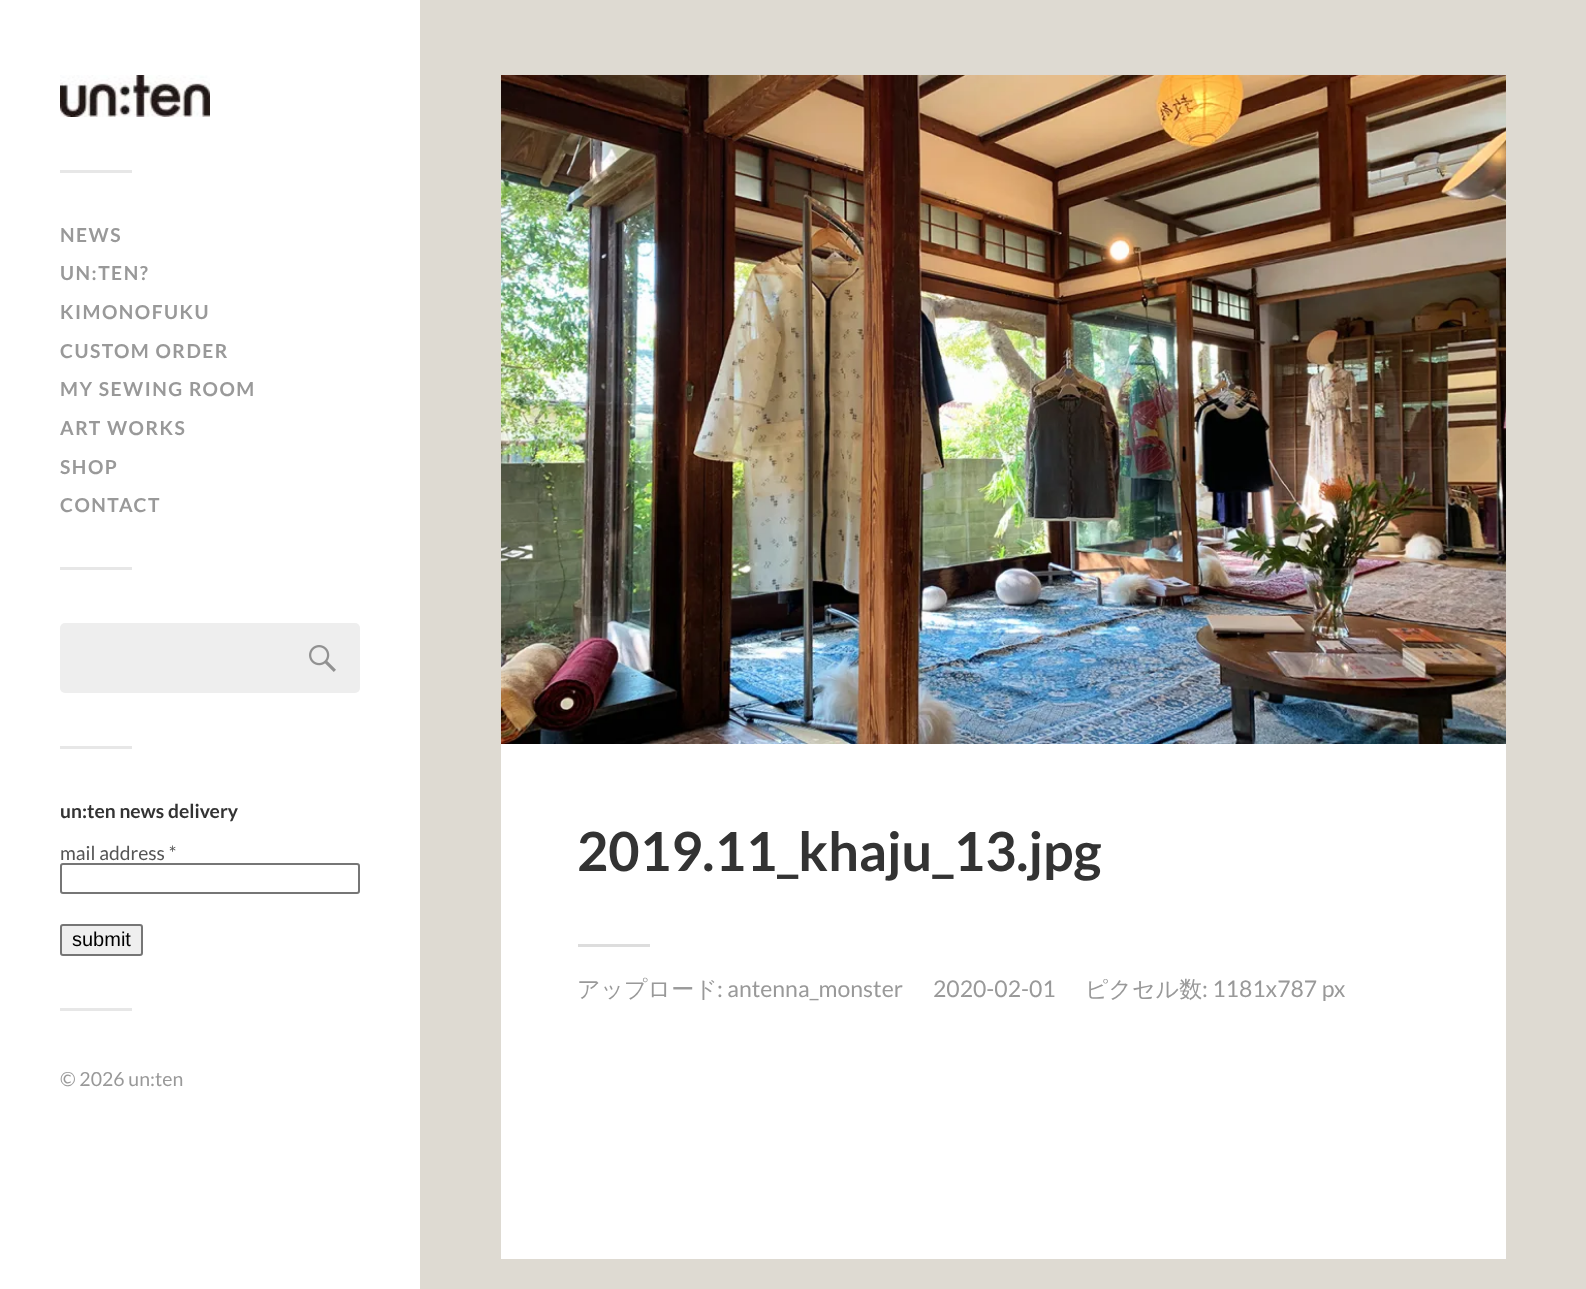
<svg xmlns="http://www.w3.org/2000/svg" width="1586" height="1289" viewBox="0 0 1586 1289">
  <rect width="100%" height="100%" fill="#dedad2"/>
  <rect x="0" y="0" width="420" height="1289" fill="#ffffff"/>
  <image x="60" y="75" width="150" height="42" href="img1.png"/>
  <rect x="60" y="170" width="72" height="3" fill="#e7e7e7"/>
  <text x="60" y="242" font-family="Lato" font-size="19.25" font-weight="bold" letter-spacing="1.5" fill="#999999">NEWS</text>
  <text x="60" y="280" font-family="Lato" font-size="19.25" font-weight="bold" letter-spacing="1.5" fill="#999999">UN:TEN?</text>
  <text x="60" y="319" font-family="Lato" font-size="19.25" font-weight="bold" letter-spacing="1.5" fill="#999999">KIMONOFUKU</text>
  <text x="60" y="358" font-family="Lato" font-size="19.25" font-weight="bold" letter-spacing="1.5" fill="#999999">CUSTOM ORDER</text>
  <text x="60" y="396" font-family="Lato" font-size="19.25" font-weight="bold" letter-spacing="1.5" fill="#999999">MY SEWING ROOM</text>
  <text x="60" y="435" font-family="Lato" font-size="19.25" font-weight="bold" letter-spacing="1.5" fill="#999999">ART WORKS</text>
  <text x="60" y="474" font-family="Lato" font-size="19.25" font-weight="bold" letter-spacing="1.5" fill="#999999">SHOP</text>
  <text x="60" y="512" font-family="Lato" font-size="19.25" font-weight="bold" letter-spacing="1.5" fill="#999999">CONTACT</text>
  <rect x="60" y="567" width="72" height="3" fill="#e7e7e7"/>
  <rect x="60" y="623" width="300" height="70" rx="5" fill="#eeeeee"/>
  <image x="309" y="645" width="27" height="27" href="img2.png"/>
  <rect x="60" y="746" width="72" height="3" fill="#e7e7e7"/>
  <text x="60" y="818" font-family="Lato" font-size="19.25" font-weight="bold" fill="#333333">un:ten news delivery</text>
  <text x="60" y="860" font-family="Lato" font-size="19.25" fill="#555555">mail address *</text>
  <rect x="61" y="864" width="298" height="29" rx="2" fill="none" stroke="#767676" stroke-width="2"/>
  <rect x="61" y="925" width="81" height="30" rx="2" fill="#efefef" stroke="#767676" stroke-width="2"/>
  <text x="72" y="946" font-family="Liberation Sans" font-size="20" fill="#000000">submit</text>
  <rect x="60" y="1008" width="72" height="3" fill="#e7e7e7"/>
  <text x="60" y="1086" font-family="Lato" font-size="19.5" fill="#999999">© 2026 un:ten</text>
  <rect x="501" y="744" width="1005" height="515" fill="#ffffff"/>
  <image x="501" y="75" width="1005" height="669" href="img3.png"/>
  <text x="577" y="871" font-family="Lato" font-size="54" font-weight="bold" fill="#333333">2019.11_khaju_13.jpg</text>
  <rect x="578" y="944" width="72" height="3" fill="#dddddd"/>
  <text x="577" y="997" font-family="WenQuanYi Zen Hei" font-size="23" font-weight="500" fill="#999999">アップロード</text>
  <text x="717" y="997" font-family="Lato" font-size="23" fill="#999999">: antenna_monster</text>
  <text x="933" y="997" font-family="Lato" font-size="23" fill="#999999">2020-02-01</text>
  <text x="1085" y="997" font-family="WenQuanYi Zen Hei" font-size="23" font-weight="500" fill="#999999">ピクセル数</text>
  <text x="1202" y="997" font-family="Lato" font-size="23" fill="#999999">: 1181x787 px</text>
</svg>
